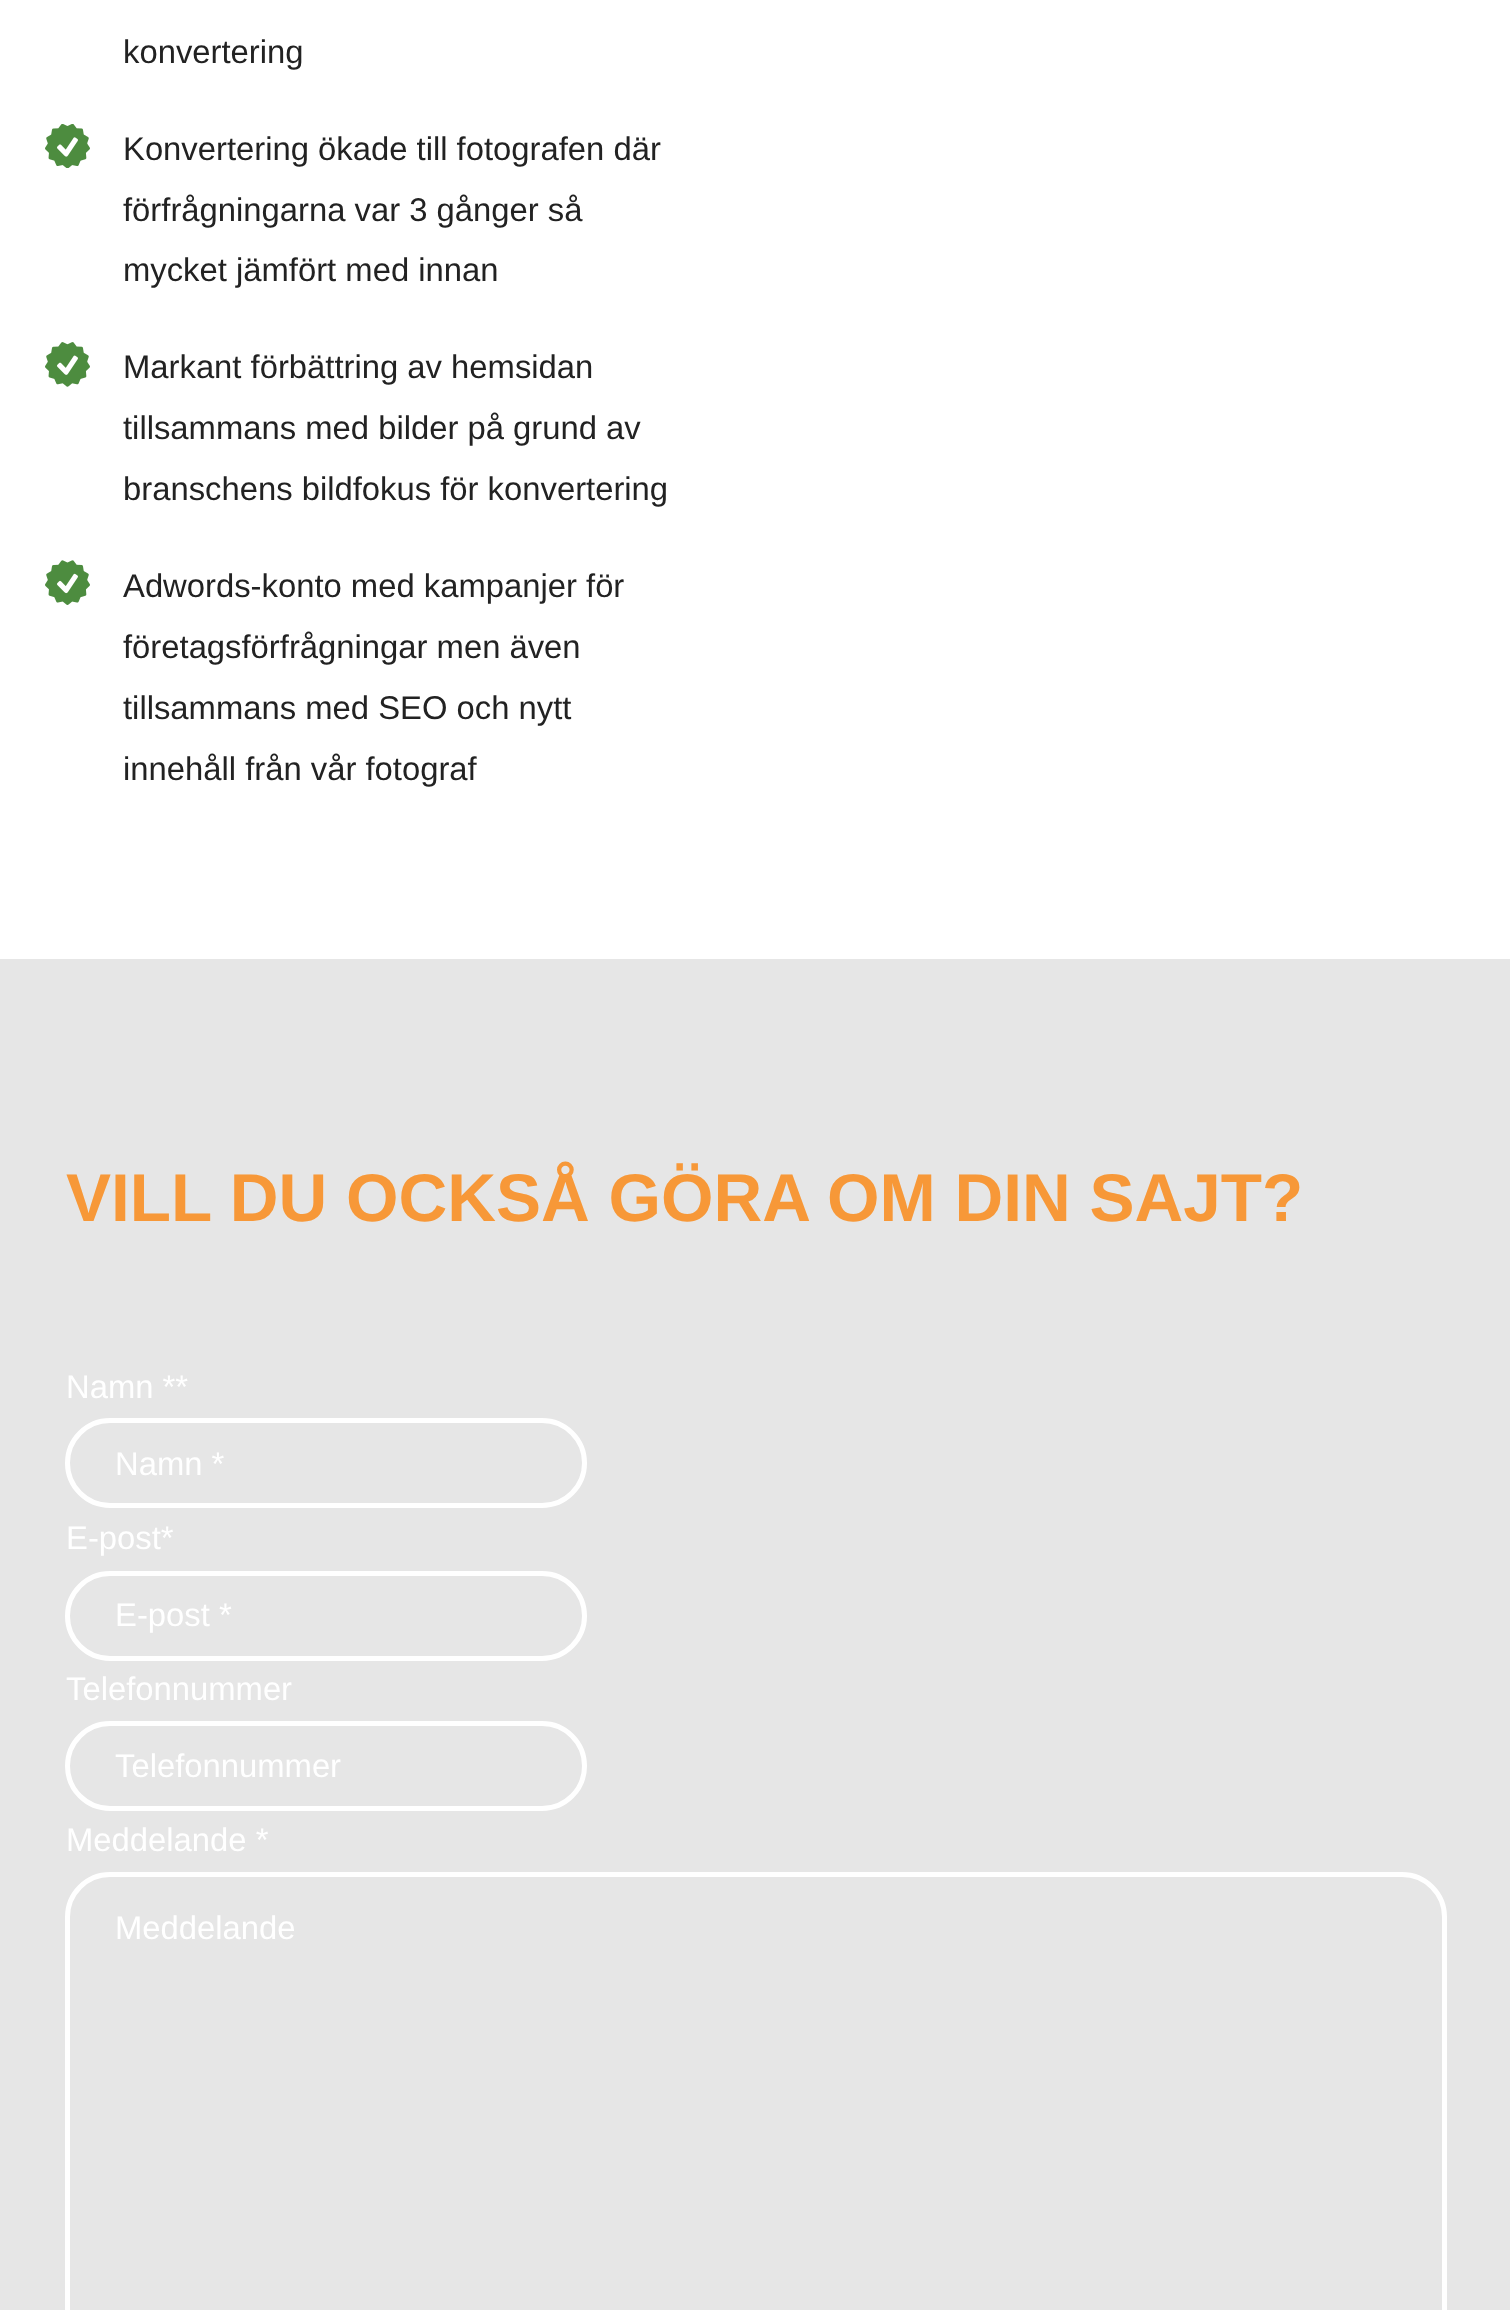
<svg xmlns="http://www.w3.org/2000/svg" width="1510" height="2310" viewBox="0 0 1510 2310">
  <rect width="100%" height="100%" fill="#ffffff"/>
  <text x="123" y="63" font-family="Liberation Sans" font-size="32.8" fill="#222222">konvertering</text>
  <image x="45" y="124" width="45" height="44" href="img1.png"/>
  <text x="123" y="160" font-family="Liberation Sans" font-size="32.8" fill="#222222">Konvertering ökade till fotografen där</text>
  <text x="123" y="221" font-family="Liberation Sans" font-size="32.8" fill="#222222">förfrågningarna var 3 gånger så</text>
  <text x="123" y="281" font-family="Liberation Sans" font-size="32.8" fill="#222222">mycket jämfört med innan</text>
  <image x="45" y="342" width="45" height="45" href="img2.png"/>
  <text x="123" y="378" font-family="Liberation Sans" font-size="32.8" fill="#222222">Markant förbättring av hemsidan</text>
  <text x="123" y="439" font-family="Liberation Sans" font-size="32.8" fill="#222222">tillsammans med bilder på grund av</text>
  <text x="123" y="500" font-family="Liberation Sans" font-size="32.8" fill="#222222">branschens bildfokus för konvertering</text>
  <image x="45" y="560" width="45" height="45" href="img3.png"/>
  <text x="123" y="597" font-family="Liberation Sans" font-size="32.8" fill="#222222">Adwords-konto med kampanjer för</text>
  <text x="123" y="658" font-family="Liberation Sans" font-size="32.8" fill="#222222">företagsförfrågningar men även</text>
  <text x="123" y="719" font-family="Liberation Sans" font-size="32.8" fill="#222222">tillsammans med SEO och nytt</text>
  <text x="123" y="780" font-family="Liberation Sans" font-size="32.8" fill="#222222">innehåll från vår fotograf</text>
  <rect x="0" y="959" width="1510" height="1351" fill="#e6e6e6"/>
  <text x="66" y="1221" font-family="Liberation Sans" font-size="67.5" font-weight="bold" fill="#f79838">VILL DU OCKSÅ GÖRA</text>
  <text x="827" y="1221" font-family="Liberation Sans" font-size="67.5" font-weight="bold" fill="#f79838">OM DIN SAJT?</text>
  <text x="66" y="1398" font-family="Liberation Sans" font-size="32.8" fill="#ffffff">Namn **</text>
  <rect x="67.5" y="1420.5" width="517" height="85" rx="42.5" fill="none" stroke="#ffffff" stroke-width="5"/>
  <text x="115" y="1475" font-family="Liberation Sans" font-size="32.8" fill="#ffffff">Namn *</text>
  <text x="66" y="1549" font-family="Liberation Sans" font-size="32.8" fill="#ffffff">E-post*</text>
  <rect x="67.5" y="1573.5" width="517" height="85" rx="42.5" fill="none" stroke="#ffffff" stroke-width="5"/>
  <text x="115" y="1626" font-family="Liberation Sans" font-size="32.8" fill="#ffffff">E-post *</text>
  <text x="66" y="1700" font-family="Liberation Sans" font-size="32.8" fill="#ffffff">Telefonnummer</text>
  <rect x="67.5" y="1723.5" width="517" height="85" rx="42.5" fill="none" stroke="#ffffff" stroke-width="5"/>
  <text x="115" y="1777" font-family="Liberation Sans" font-size="32.8" fill="#ffffff">Telefonnummer</text>
  <text x="66" y="1851" font-family="Liberation Sans" font-size="32.8" fill="#ffffff">Meddelande *</text>
  <rect x="67.5" y="1874.5" width="1377" height="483" rx="42.5" fill="none" stroke="#ffffff" stroke-width="5"/>
  <text x="115" y="1939" font-family="Liberation Sans" font-size="32.8" fill="#ffffff">Meddelande</text>
</svg>
